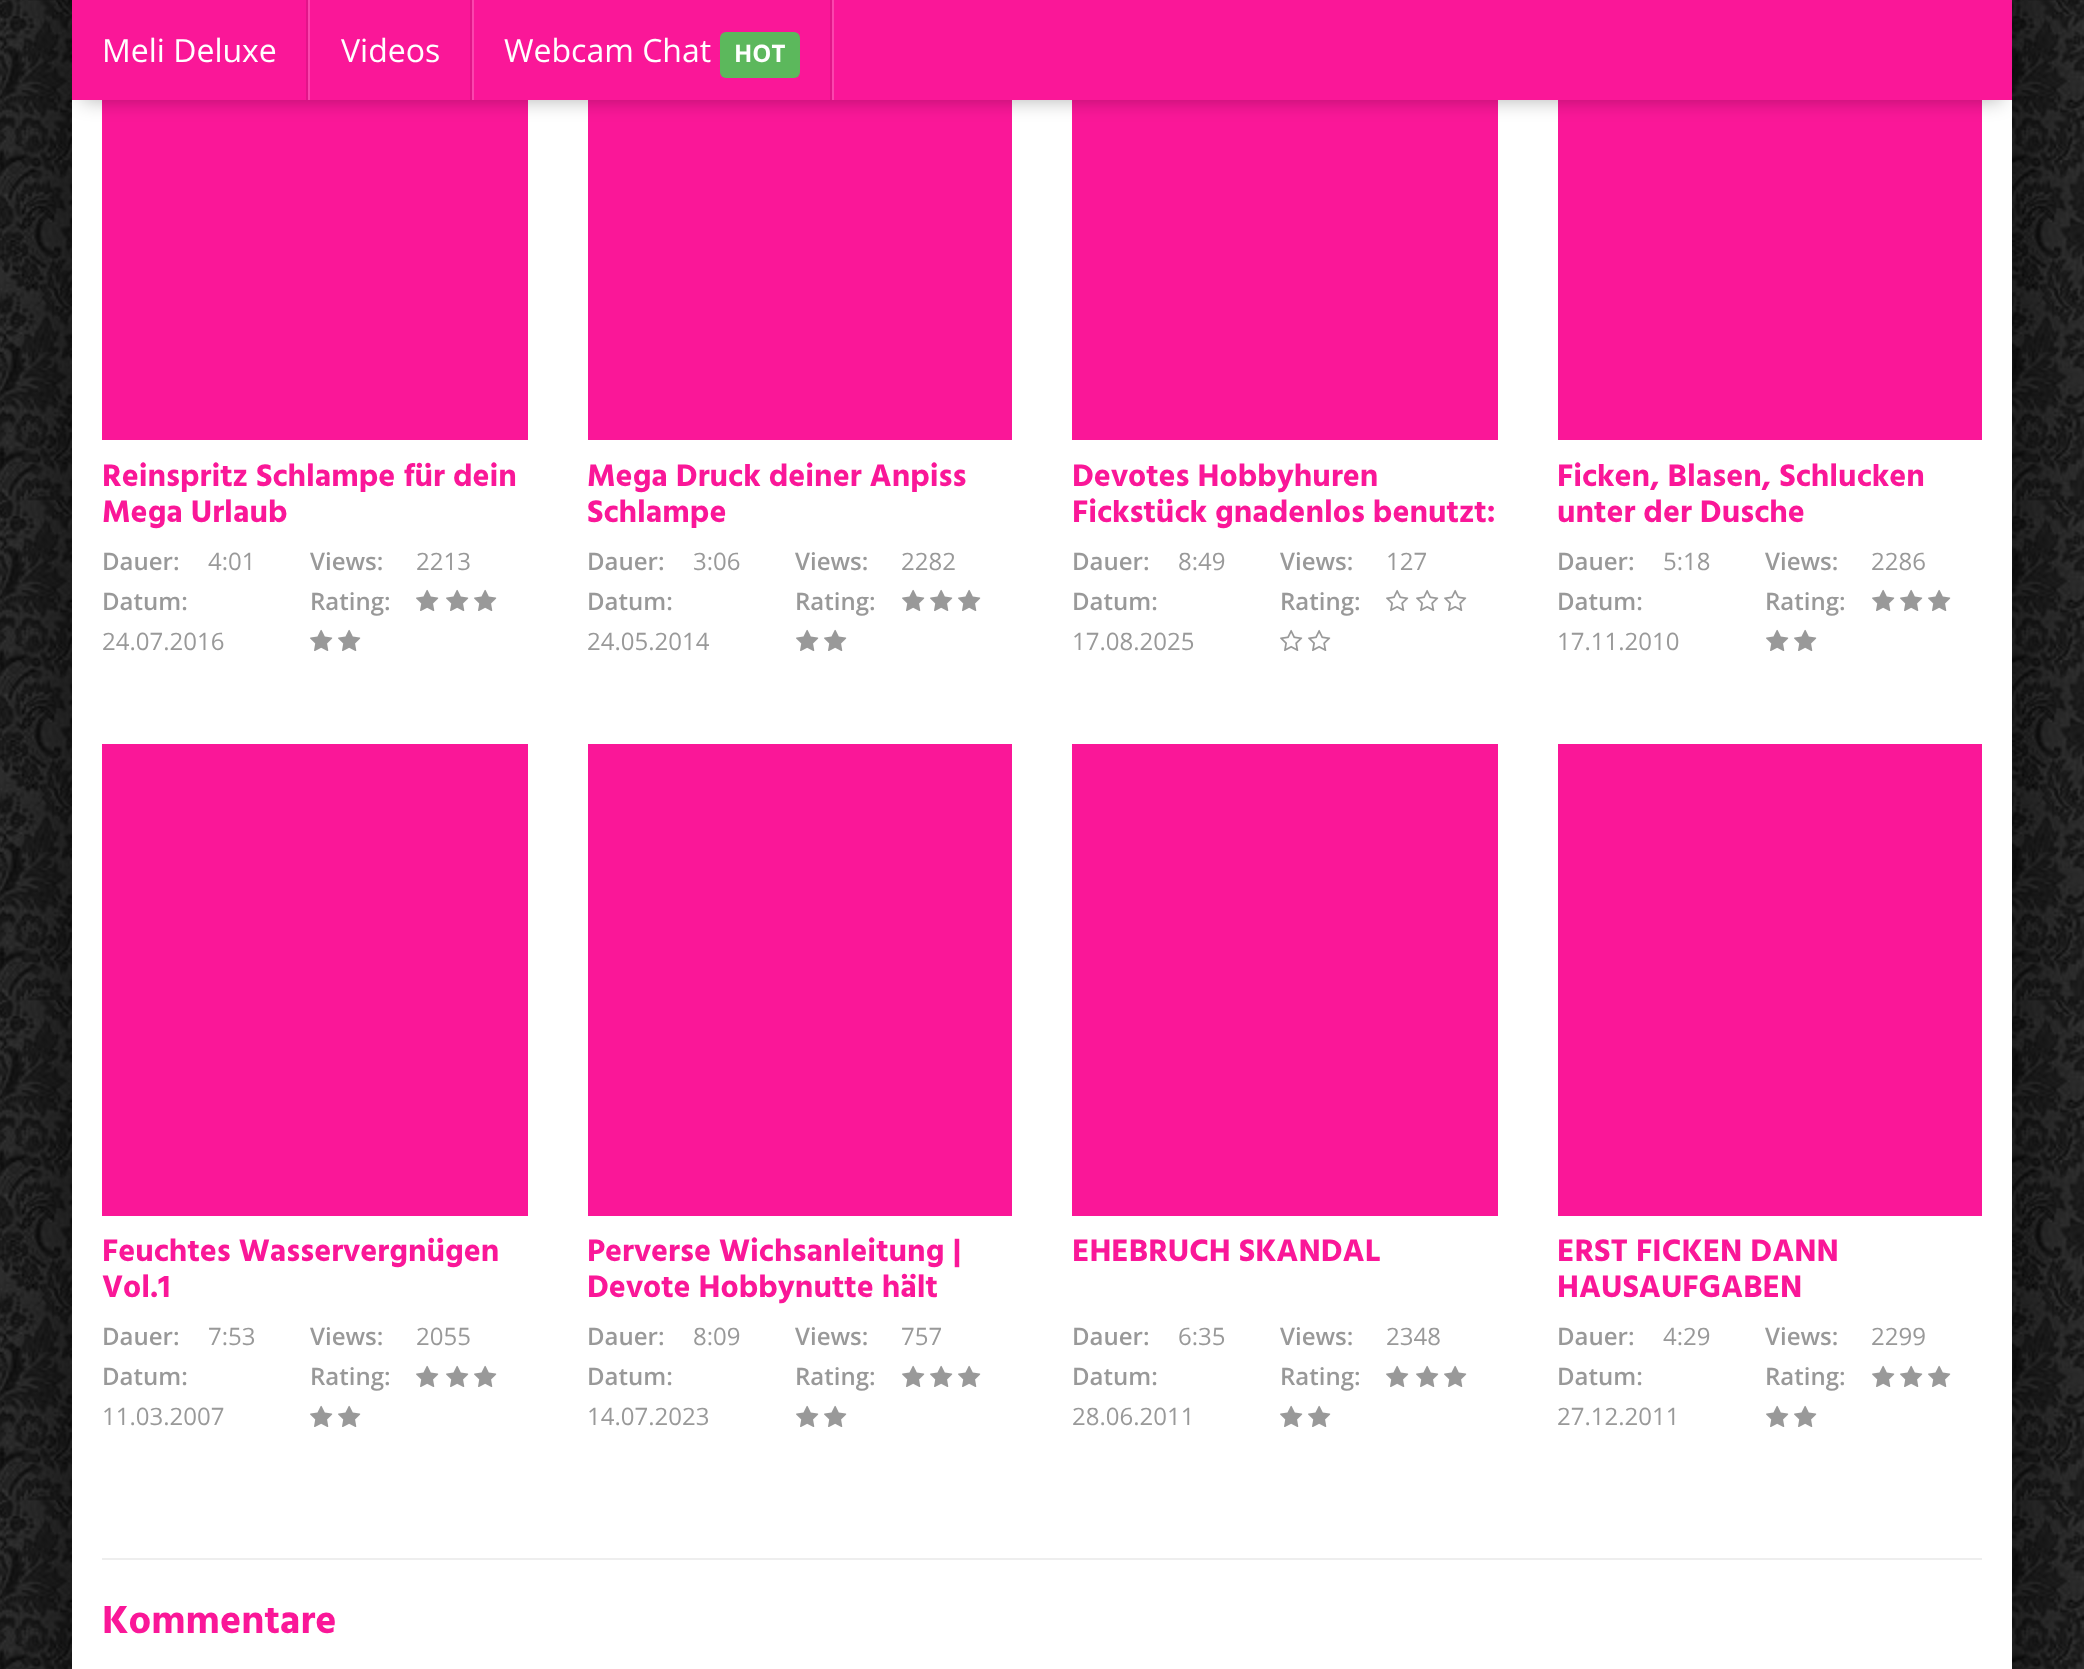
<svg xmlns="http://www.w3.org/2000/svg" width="2084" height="1669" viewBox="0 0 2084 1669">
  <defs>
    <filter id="blur1" x="-50%" y="-200%" width="200%" height="500%"><feGaussianBlur stdDeviation="30"/></filter>
    <filter id="blur2" x="-50%" y="-200%" width="200%" height="500%"><feGaussianBlur stdDeviation="10"/></filter>
  </defs>
  <rect width="100%" height="100%" fill="#ffffff"/>
  <image x="0" y="0" width="2084" height="1669" href="img1.png"/>
  <rect x="52" y="-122" width="1980" height="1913" rx="32" fill="#000000" fill-opacity="0.4" filter="url(#blur1)"/>
  <rect x="72" y="100" width="1940" height="1569" fill="#ffffff"/>
  <rect x="102" y="100" width="426" height="340" fill="#fa1798"/>
  <rect x="588" y="100" width="424" height="340" fill="#fa1798"/>
  <rect x="1072" y="100" width="426" height="340" fill="#fa1798"/>
  <rect x="1558" y="100" width="424" height="340" fill="#fa1798"/>
  <rect x="82" y="20" width="1920" height="80" fill="#000000" fill-opacity="0.3" filter="url(#blur2)"/>
  <rect x="72" y="0" width="1940" height="100" fill="#fa1798"/>
  <rect x="832" y="0" width="2" height="100" fill="#fb45ad"/>
  <rect x="306" y="0" width="2" height="100" fill="#e11589"/>
  <text x="102" y="62" font-family="Open Sans" font-size="32" fill="#ffffff">Meli Deluxe</text>
  <rect x="470" y="0" width="2" height="100" fill="#e11589"/>
  <rect x="308" y="0" width="2" height="100" fill="#fb45ad"/>
  <text x="341" y="62" font-family="Open Sans" font-size="32" fill="#ffffff">Videos</text>
  <rect x="830" y="0" width="2" height="100" fill="#e11589"/>
  <rect x="472" y="0" width="2" height="100" fill="#fb45ad"/>
  <text x="504" y="62" font-family="Open Sans" font-size="32" fill="#ffffff">Webcam Chat</text>
  <rect x="720" y="32" width="80" height="46" rx="6" fill="#5cb85c"/>
  <text x="734" y="62" font-family="Open Sans" font-size="24" font-weight="bold" fill="#ffffff">HOT</text>
  <text x="102" y="486" font-family="Hind" font-size="32" font-weight="bold" fill="#fa1798">Reinspritz Schlampe für dein</text>
  <text x="102" y="522" font-family="Hind" font-size="32" font-weight="bold" fill="#fa1798">Mega Urlaub</text>
  <text x="102" y="570" font-family="Open Sans" font-size="24" font-weight="600" fill="#999999">Dauer:</text>
  <text x="208" y="570" font-family="Open Sans" font-size="24" fill="#999999">4:01</text>
  <text x="310" y="570" font-family="Open Sans" font-size="24" font-weight="600" fill="#999999">Views:</text>
  <text x="416" y="570" font-family="Open Sans" font-size="24" fill="#999999">2213</text>
  <text x="102" y="610" font-family="Open Sans" font-size="24" font-weight="600" fill="#999999">Datum:</text>
  <text x="102" y="650" font-family="Open Sans" font-size="24" fill="#999999">24.07.2016</text>
  <text x="310" y="610" font-family="Open Sans" font-size="24" font-weight="600" fill="#999999">Rating:</text>
  <image x="416" y="589" width="23" height="22" href="img2.png"/>
  <image x="446" y="589" width="23" height="22" href="img2.png"/>
  <image x="474" y="589" width="23" height="22" href="img2.png"/>
  <image x="310" y="629" width="23" height="22" href="img2.png"/>
  <image x="338" y="629" width="23" height="22" href="img2.png"/>
  <text x="587" y="486" font-family="Hind" font-size="32" font-weight="bold" fill="#fa1798">Mega Druck deiner Anpiss</text>
  <text x="587" y="522" font-family="Hind" font-size="32" font-weight="bold" fill="#fa1798">Schlampe</text>
  <text x="587" y="570" font-family="Open Sans" font-size="24" font-weight="600" fill="#999999">Dauer:</text>
  <text x="693" y="570" font-family="Open Sans" font-size="24" fill="#999999">3:06</text>
  <text x="795" y="570" font-family="Open Sans" font-size="24" font-weight="600" fill="#999999">Views:</text>
  <text x="901" y="570" font-family="Open Sans" font-size="24" fill="#999999">2282</text>
  <text x="587" y="610" font-family="Open Sans" font-size="24" font-weight="600" fill="#999999">Datum:</text>
  <text x="587" y="650" font-family="Open Sans" font-size="24" fill="#999999">24.05.2014</text>
  <text x="795" y="610" font-family="Open Sans" font-size="24" font-weight="600" fill="#999999">Rating:</text>
  <image x="902" y="589" width="23" height="22" href="img2.png"/>
  <image x="930" y="589" width="23" height="22" href="img2.png"/>
  <image x="958" y="589" width="23" height="22" href="img2.png"/>
  <image x="796" y="629" width="23" height="22" href="img2.png"/>
  <image x="824" y="629" width="23" height="22" href="img2.png"/>
  <text x="1072" y="486" font-family="Hind" font-size="32" font-weight="bold" fill="#fa1798">Devotes Hobbyhuren</text>
  <text x="1072" y="522" font-family="Hind" font-size="32" font-weight="bold" fill="#fa1798">Fickstück gnadenlos benutzt:</text>
  <text x="1072" y="570" font-family="Open Sans" font-size="24" font-weight="600" fill="#999999">Dauer:</text>
  <text x="1178" y="570" font-family="Open Sans" font-size="24" fill="#999999">8:49</text>
  <text x="1280" y="570" font-family="Open Sans" font-size="24" font-weight="600" fill="#999999">Views:</text>
  <text x="1386" y="570" font-family="Open Sans" font-size="24" fill="#999999">127</text>
  <text x="1072" y="610" font-family="Open Sans" font-size="24" font-weight="600" fill="#999999">Datum:</text>
  <text x="1072" y="650" font-family="Open Sans" font-size="24" fill="#999999">17.08.2025</text>
  <text x="1280" y="610" font-family="Open Sans" font-size="24" font-weight="600" fill="#999999">Rating:</text>
  <image x="1386" y="589" width="23" height="22" href="img3.png"/>
  <image x="1416" y="589" width="23" height="22" href="img3.png"/>
  <image x="1444" y="589" width="23" height="22" href="img3.png"/>
  <image x="1280" y="629" width="23" height="22" href="img3.png"/>
  <image x="1308" y="629" width="23" height="22" href="img3.png"/>
  <text x="1557" y="486" font-family="Hind" font-size="32" font-weight="bold" fill="#fa1798">Ficken, Blasen, Schlucken</text>
  <text x="1557" y="522" font-family="Hind" font-size="32" font-weight="bold" fill="#fa1798">unter der Dusche</text>
  <text x="1557" y="570" font-family="Open Sans" font-size="24" font-weight="600" fill="#999999">Dauer:</text>
  <text x="1663" y="570" font-family="Open Sans" font-size="24" fill="#999999">5:18</text>
  <text x="1765" y="570" font-family="Open Sans" font-size="24" font-weight="600" fill="#999999">Views:</text>
  <text x="1871" y="570" font-family="Open Sans" font-size="24" fill="#999999">2286</text>
  <text x="1557" y="610" font-family="Open Sans" font-size="24" font-weight="600" fill="#999999">Datum:</text>
  <text x="1557" y="650" font-family="Open Sans" font-size="24" fill="#999999">17.11.2010</text>
  <text x="1765" y="610" font-family="Open Sans" font-size="24" font-weight="600" fill="#999999">Rating:</text>
  <image x="1872" y="589" width="23" height="22" href="img2.png"/>
  <image x="1900" y="589" width="23" height="22" href="img2.png"/>
  <image x="1928" y="589" width="23" height="22" href="img2.png"/>
  <image x="1766" y="629" width="23" height="22" href="img2.png"/>
  <image x="1794" y="629" width="23" height="22" href="img2.png"/>
  <rect x="102" y="744" width="426" height="472" fill="#fa1798"/>
  <text x="102" y="1261" font-family="Hind" font-size="32" font-weight="bold" fill="#fa1798">Feuchtes Wasservergnügen</text>
  <text x="102" y="1297" font-family="Hind" font-size="32" font-weight="bold" fill="#fa1798">Vol.1</text>
  <text x="102" y="1345" font-family="Open Sans" font-size="24" font-weight="600" fill="#999999">Dauer:</text>
  <text x="208" y="1345" font-family="Open Sans" font-size="24" fill="#999999">7:53</text>
  <text x="310" y="1345" font-family="Open Sans" font-size="24" font-weight="600" fill="#999999">Views:</text>
  <text x="416" y="1345" font-family="Open Sans" font-size="24" fill="#999999">2055</text>
  <text x="102" y="1385" font-family="Open Sans" font-size="24" font-weight="600" fill="#999999">Datum:</text>
  <text x="102" y="1425" font-family="Open Sans" font-size="24" fill="#999999">11.03.2007</text>
  <text x="310" y="1385" font-family="Open Sans" font-size="24" font-weight="600" fill="#999999">Rating:</text>
  <image x="416" y="1365" width="23" height="22" href="img2.png"/>
  <image x="446" y="1365" width="23" height="22" href="img2.png"/>
  <image x="474" y="1365" width="23" height="22" href="img2.png"/>
  <image x="310" y="1405" width="23" height="22" href="img2.png"/>
  <image x="338" y="1405" width="23" height="22" href="img2.png"/>
  <rect x="588" y="744" width="424" height="472" fill="#fa1798"/>
  <text x="587" y="1261" font-family="Hind" font-size="32" font-weight="bold" fill="#fa1798">Perverse Wichsanleitung |</text>
  <text x="587" y="1297" font-family="Hind" font-size="32" font-weight="bold" fill="#fa1798">Devote Hobbynutte hält</text>
  <text x="587" y="1345" font-family="Open Sans" font-size="24" font-weight="600" fill="#999999">Dauer:</text>
  <text x="693" y="1345" font-family="Open Sans" font-size="24" fill="#999999">8:09</text>
  <text x="795" y="1345" font-family="Open Sans" font-size="24" font-weight="600" fill="#999999">Views:</text>
  <text x="901" y="1345" font-family="Open Sans" font-size="24" fill="#999999">757</text>
  <text x="587" y="1385" font-family="Open Sans" font-size="24" font-weight="600" fill="#999999">Datum:</text>
  <text x="587" y="1425" font-family="Open Sans" font-size="24" fill="#999999">14.07.2023</text>
  <text x="795" y="1385" font-family="Open Sans" font-size="24" font-weight="600" fill="#999999">Rating:</text>
  <image x="902" y="1365" width="23" height="22" href="img2.png"/>
  <image x="930" y="1365" width="23" height="22" href="img2.png"/>
  <image x="958" y="1365" width="23" height="22" href="img2.png"/>
  <image x="796" y="1405" width="23" height="22" href="img2.png"/>
  <image x="824" y="1405" width="23" height="22" href="img2.png"/>
  <rect x="1072" y="744" width="426" height="472" fill="#fa1798"/>
  <text x="1072" y="1261" font-family="Hind" font-size="32" font-weight="bold" fill="#fa1798">EHEBRUCH SKANDAL</text>
  <text x="1072" y="1345" font-family="Open Sans" font-size="24" font-weight="600" fill="#999999">Dauer:</text>
  <text x="1178" y="1345" font-family="Open Sans" font-size="24" fill="#999999">6:35</text>
  <text x="1280" y="1345" font-family="Open Sans" font-size="24" font-weight="600" fill="#999999">Views:</text>
  <text x="1386" y="1345" font-family="Open Sans" font-size="24" fill="#999999">2348</text>
  <text x="1072" y="1385" font-family="Open Sans" font-size="24" font-weight="600" fill="#999999">Datum:</text>
  <text x="1072" y="1425" font-family="Open Sans" font-size="24" fill="#999999">28.06.2011</text>
  <text x="1280" y="1385" font-family="Open Sans" font-size="24" font-weight="600" fill="#999999">Rating:</text>
  <image x="1386" y="1365" width="23" height="22" href="img2.png"/>
  <image x="1416" y="1365" width="23" height="22" href="img2.png"/>
  <image x="1444" y="1365" width="23" height="22" href="img2.png"/>
  <image x="1280" y="1405" width="23" height="22" href="img2.png"/>
  <image x="1308" y="1405" width="23" height="22" href="img2.png"/>
  <rect x="1558" y="744" width="424" height="472" fill="#fa1798"/>
  <text x="1557" y="1261" font-family="Hind" font-size="32" font-weight="bold" fill="#fa1798">ERST FICKEN DANN</text>
  <text x="1557" y="1297" font-family="Hind" font-size="32" font-weight="bold" fill="#fa1798">HAUSAUFGABEN</text>
  <text x="1557" y="1345" font-family="Open Sans" font-size="24" font-weight="600" fill="#999999">Dauer:</text>
  <text x="1663" y="1345" font-family="Open Sans" font-size="24" fill="#999999">4:29</text>
  <text x="1765" y="1345" font-family="Open Sans" font-size="24" font-weight="600" fill="#999999">Views:</text>
  <text x="1871" y="1345" font-family="Open Sans" font-size="24" fill="#999999">2299</text>
  <text x="1557" y="1385" font-family="Open Sans" font-size="24" font-weight="600" fill="#999999">Datum:</text>
  <text x="1557" y="1425" font-family="Open Sans" font-size="24" fill="#999999">27.12.2011</text>
  <text x="1765" y="1385" font-family="Open Sans" font-size="24" font-weight="600" fill="#999999">Rating:</text>
  <image x="1872" y="1365" width="23" height="22" href="img2.png"/>
  <image x="1900" y="1365" width="23" height="22" href="img2.png"/>
  <image x="1928" y="1365" width="23" height="22" href="img2.png"/>
  <image x="1766" y="1405" width="23" height="22" href="img2.png"/>
  <image x="1794" y="1405" width="23" height="22" href="img2.png"/>
  <rect x="102" y="1558" width="1880" height="2" fill="#eeeeee"/>
  <text x="102" y="1633" font-family="Hind" font-size="40" font-weight="bold" fill="#fa1798">Kommentare</text>
</svg>
